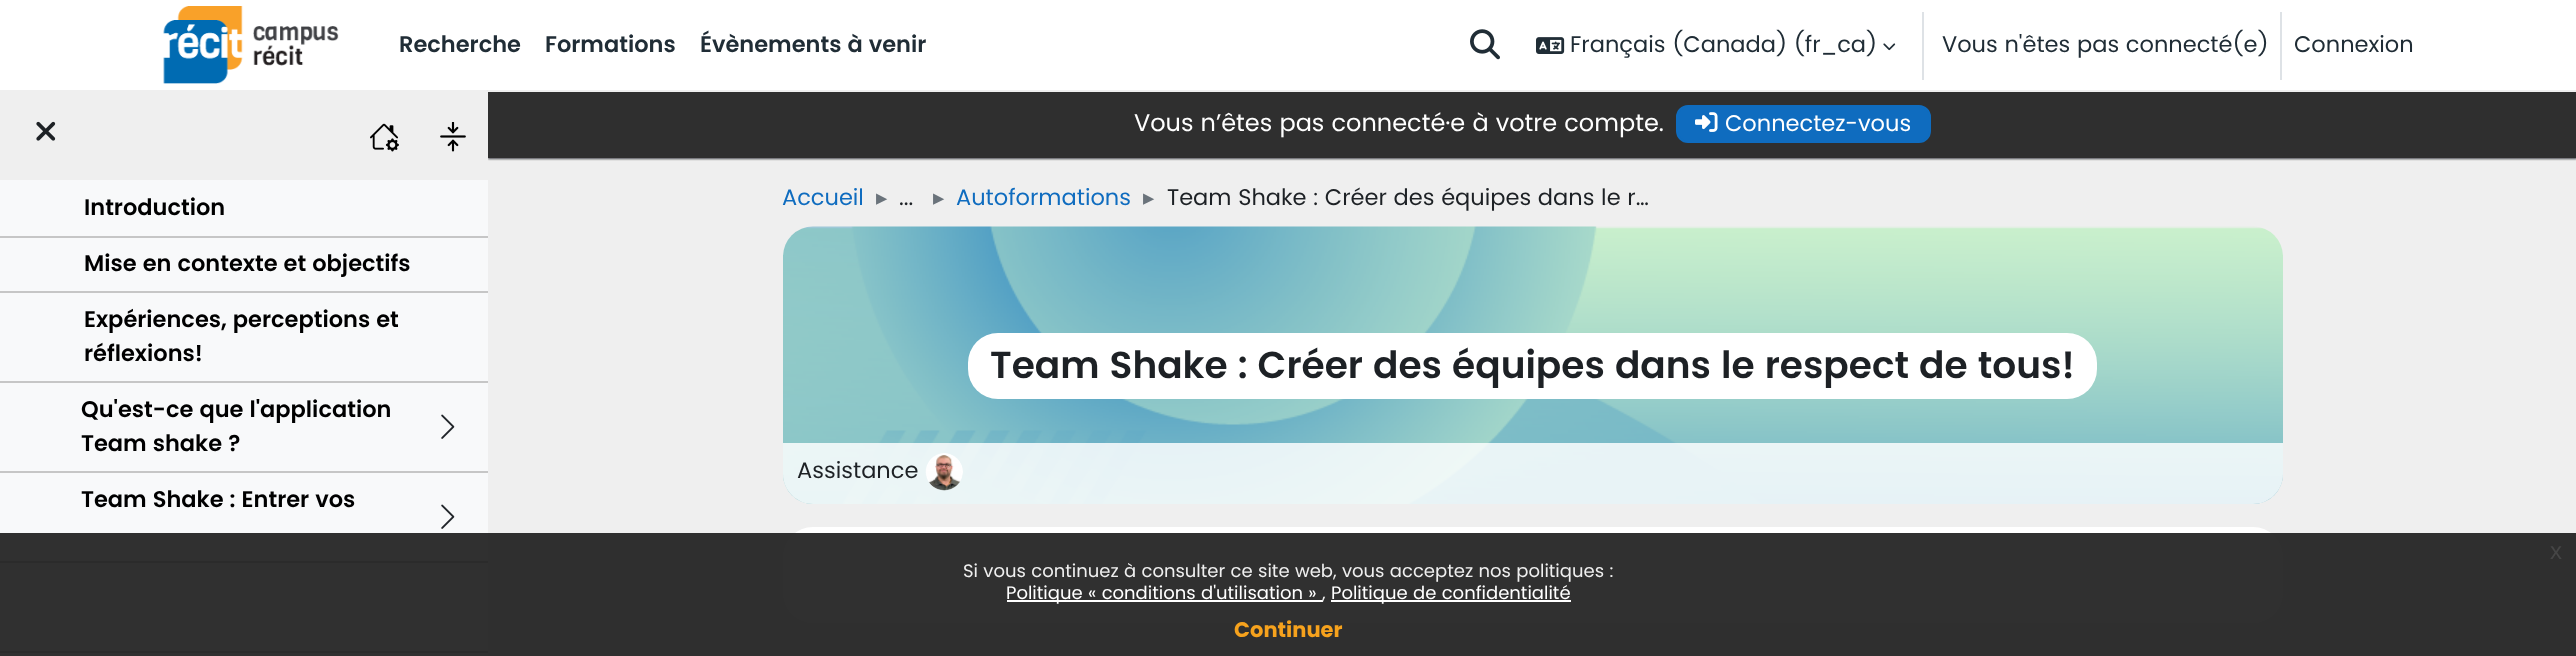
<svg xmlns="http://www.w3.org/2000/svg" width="2576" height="656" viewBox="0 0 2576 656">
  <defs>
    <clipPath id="clip1"><path d="M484 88H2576V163H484ZM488 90H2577V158H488Z" clip-rule="evenodd"/></clipPath>
    <filter id="blur1" x="-50%" y="-200%" width="200%" height="500%"><feGaussianBlur stdDeviation="1"/></filter>
  </defs>
  <rect width="100%" height="100%" fill="#efefef"/>
  <g clip-path="url(#clip1)">
    <rect x="488" y="92" width="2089" height="67" fill="#414346" filter="url(#blur1)"/>
  </g>
  <rect x="0" y="0" width="2576" height="90" fill="#ffffff"/>
  <image x="163" y="6" width="176" height="78" href="img1.png"/>
  <text x="399" y="52" font-family="Poppins" font-size="22.5" font-weight="600" fill="#202d36">Recherche</text>
  <text x="545" y="52" font-family="Poppins" font-size="22.5" font-weight="600" fill="#202d36">Formations</text>
  <text x="700" y="52" font-family="Poppins" font-size="22.5" font-weight="600" fill="#202d36">Évènements à venir</text>
  <image x="1470" y="29" width="30" height="31" href="img2.png"/>
  <image x="1536" y="37" width="29" height="17" href="img3.png"/>
  <text x="1570" y="52" font-family="Poppins" font-size="22.5" fill="#202d36">Français (Canada) (fr_ca)</text>
  <image x="1883" y="43" width="13" height="8" href="img4.png"/>
  <rect x="1922" y="12" width="2" height="68" fill="#dee2e6"/>
  <text x="1942" y="52" font-family="Poppins" font-size="22.5" fill="#202d36">Vous n'êtes pas connecté(e)</text>
  <rect x="2280" y="12" width="2" height="68" fill="#dee2e6"/>
  <text x="2294" y="52" font-family="Poppins" font-size="22.5" fill="#202d36">Connexion</text>
  <rect x="0" y="180" width="488" height="476" fill="#f8f9fa"/>
  <rect x="486" y="91" width="2" height="70" fill="#efefef"/>
  <image x="36" y="121" width="20" height="20" href="img5.png"/>
  <image x="370" y="123" width="29" height="29" href="img6.png"/>
  <image x="440" y="122" width="26" height="30" href="img7.png"/>
  <rect x="0" y="236" width="488" height="2" fill="#c6c6c6"/>
  <text x="84" y="215" font-family="Poppins" font-size="22.5" font-weight="600" fill="#000000">Introduction</text>
  <rect x="0" y="291" width="488" height="2" fill="#c6c6c6"/>
  <text x="84" y="271" font-family="Poppins" font-size="22.5" font-weight="600" fill="#000000">Mise en contexte et objectifs</text>
  <rect x="0" y="381" width="488" height="2" fill="#c6c6c6"/>
  <text x="84" y="327" font-family="Poppins" font-size="22.5" font-weight="600" fill="#000000">Expériences, perceptions et</text>
  <text x="84" y="361" font-family="Poppins" font-size="22.5" font-weight="600" fill="#000000">réflexions!</text>
  <rect x="0" y="471" width="488" height="2" fill="#c6c6c6"/>
  <text x="81" y="417" font-family="Poppins" font-size="22.5" font-weight="600" fill="#000000">Qu'est-ce que l'application</text>
  <text x="81" y="451" font-family="Poppins" font-size="22.5" font-weight="600" fill="#000000">Team shake ?</text>
  <image x="441" y="414" width="14" height="25" href="img8.png"/>
  <rect x="0" y="561" width="488" height="2" fill="#c6c6c6"/>
  <text x="81" y="507" font-family="Poppins" font-size="22.5" font-weight="600" fill="#000000">Team Shake : Entrer vos</text>
  <image x="441" y="504" width="14" height="25" href="img8.png"/>
  <rect x="0" y="651" width="488" height="2" fill="#c6c6c6"/>
  <rect x="488" y="92" width="2088" height="66" fill="#191919" fill-opacity="0.9"/>
  <text x="1134" y="131" font-family="Poppins" font-size="24" fill="#ffffff">Vous n’êtes pas connecté·e à votre compte.</text>
  <rect x="1677" y="106" width="253" height="36" rx="11" fill="#0f6cbf" stroke="#0f6cbf" stroke-width="2"/>
  <image x="1695" y="112" width="23" height="20" href="img9.png"/>
  <text x="1725" y="131" font-family="Poppins" font-size="22.5" fill="#ffffff">Connectez-vous</text>
  <text x="782" y="205" font-family="Poppins" font-size="22.5" fill="#0f6cbf">Accueil</text>
  <text x="876" y="205" font-family="DejaVu Sans" font-size="22.5" fill="#6a737b">▸</text>
  <text x="899" y="205" font-family="Poppins" font-size="22.5" fill="#1d2125">...</text>
  <text x="933" y="205" font-family="DejaVu Sans" font-size="22.5" fill="#6a737b">▸</text>
  <text x="956" y="205" font-family="Poppins" font-size="22.5" fill="#0f6cbf">Autoformations</text>
  <text x="1143" y="205" font-family="DejaVu Sans" font-size="22.5" fill="#6a737b">▸</text>
  <text x="1167" y="205" font-family="Poppins" font-size="22.5" fill="#1d2125">Team Shake : Créer des équipes dans le r…</text>
  <image x="783" y="226" width="1500" height="278" href="img10.png"/>
  <rect x="968" y="333" width="1129" height="66" rx="30" fill="#ffffff"/>
  <text x="990" y="378" font-family="Poppins" font-size="37.5" font-weight="600" fill="#1d2125">Team Shake : Créer des équipes dans le respect de tous!</text>
  <path d="M783 443H2283V474C2283 490.5 2269.5 504 2253 504H813C796.5 504 783 490.5 783 474Z" fill="#ffffff" fill-opacity="0.83"/>
  <text x="797" y="478" font-family="Poppins" font-size="22.5" fill="#1d2125">Assistance</text>
  <image x="925" y="453" width="38" height="38" href="img11.png"/>
  <rect x="783" y="527" width="1500" height="96" rx="30" fill="#ffffff"/>
  <rect x="0" y="533" width="2576" height="123" fill="#191919" fill-opacity="0.9"/>
  <text x="2550" y="559" font-family="Liberation Sans" font-size="24" fill="#464646">x</text>
  <text x="963" y="577" font-family="Poppins" font-size="18" fill="#efefef">Si vous continuez à consulter ce site web, vous acceptez nos politiques :</text>
  <rect x="1007" y="600" width="316" height="2" fill="#ffffff"/>
  <text x="1006" y="599" font-family="Poppins" font-size="18" fill="#ffffff">Politique « conditions d'utilisation »</text>
  <text x="1322" y="599" font-family="Poppins" font-size="18" fill="#efefef">,</text>
  <rect x="1331" y="600" width="240" height="2" fill="#ffffff"/>
  <text x="1331" y="599" font-family="Poppins" font-size="18" fill="#ffffff">Politique de confidentialité</text>
  <text x="1234" y="637" font-family="Poppins" font-size="21" font-weight="bold" fill="#f6a21d">Continuer</text>
</svg>
